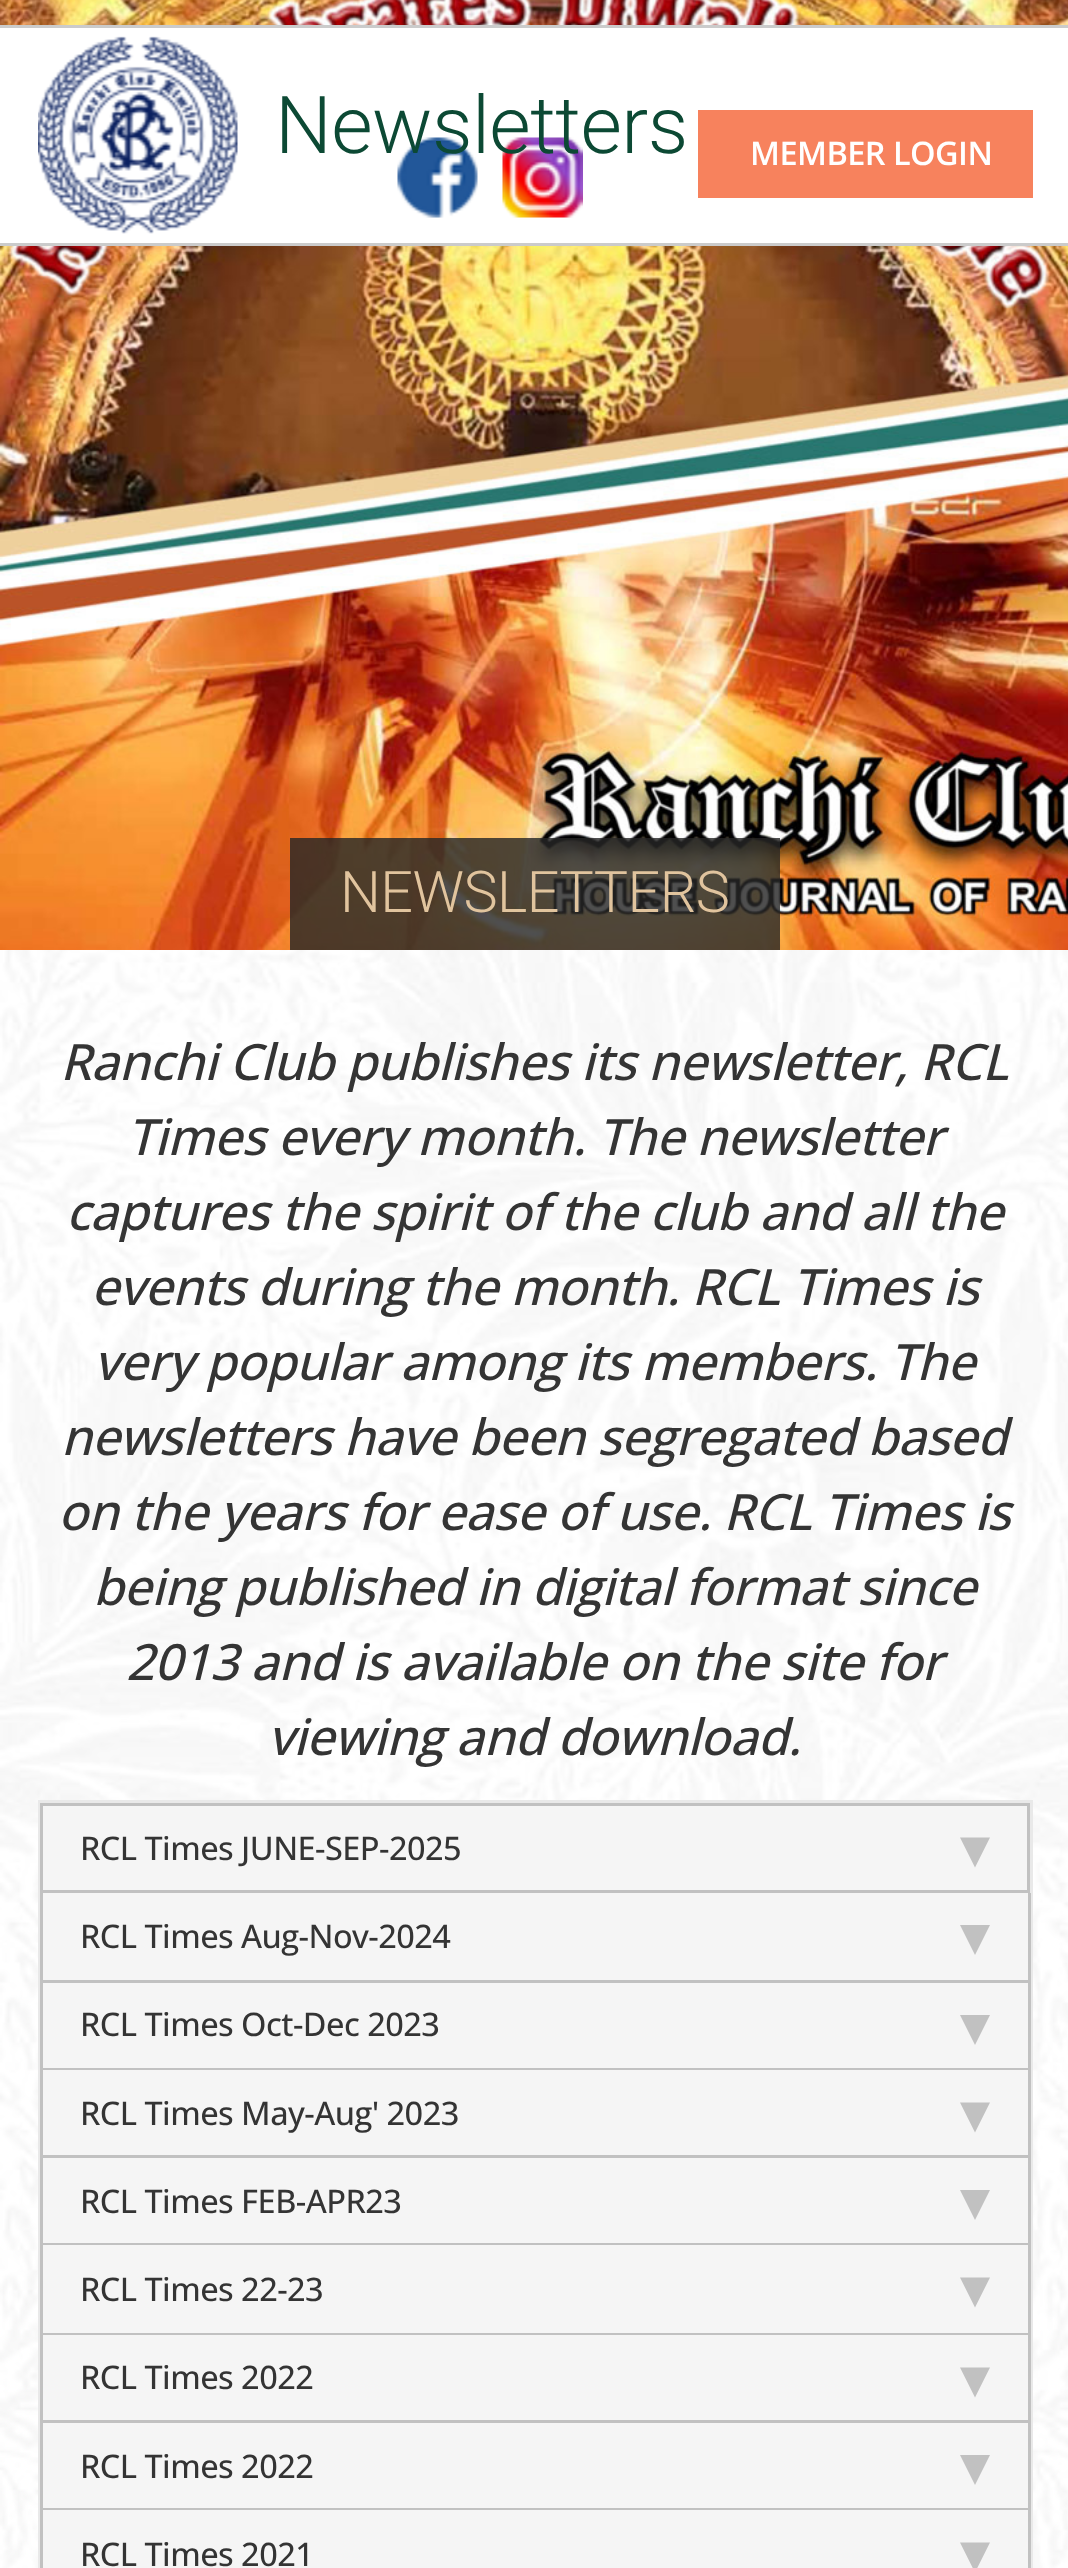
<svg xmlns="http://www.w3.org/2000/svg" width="1068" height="2568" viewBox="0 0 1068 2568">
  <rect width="100%" height="100%" fill="#ffffff"/>
  <image x="0" y="950" width="1068" height="1618" href="img1.png"/>
  <image x="0" y="0" width="1068" height="950" href="img5.png"/>
  <rect x="0" y="28" width="1068" height="215" fill="#ffffff"/>
  <rect x="0" y="25" width="1068" height="3" fill="#cbcbcb"/>
  <rect x="0" y="243" width="1068" height="3" fill="#cbcbcb"/>
  <image x="38" y="36" width="200" height="198" href="img2.png"/>
  <image x="397" y="137" width="81" height="81" href="img3.png"/>
  <image x="502" y="137" width="81" height="81" href="img4.png"/>
  <text x="275" y="153" font-family="Roboto" font-size="80" font-weight="300" letter-spacing="-0.55" fill="#0c4934">Newsletters</text>
  <rect x="698" y="110" width="335" height="88" fill="#f7825d"/>
  <text x="750" y="165" font-family="Open Sans" font-size="32.5" font-weight="600" letter-spacing="-0.55" fill="#ffffff">MEMBER LOGIN</text>
  <rect x="290" y="838" width="490" height="112" fill="#262626" fill-opacity="0.81"/>
  <text x="340" y="912" font-family="Roboto" font-size="57.5" font-weight="300" letter-spacing="-0.55" fill="#e1c49e">NEWSLETTERS</text>
  <text x="60" y="1080" font-family="Open Sans" font-size="50" font-weight="500" font-style="italic" letter-spacing="-0.55" fill="#343434">Ranchi Club publishes its newsletter, RCL</text>
  <text x="127" y="1155" font-family="Open Sans" font-size="50" font-weight="500" font-style="italic" letter-spacing="-0.55" fill="#343434">Times every month. The newsletter</text>
  <text x="66" y="1230" font-family="Open Sans" font-size="50" font-weight="500" font-style="italic" letter-spacing="-0.55" fill="#343434">captures the spirit of the club and all the</text>
  <text x="91" y="1305" font-family="Open Sans" font-size="50" font-weight="500" font-style="italic" letter-spacing="-0.55" fill="#343434">events during the month. RCL Times is</text>
  <text x="94" y="1380" font-family="Open Sans" font-size="50" font-weight="500" font-style="italic" letter-spacing="-0.55" fill="#343434">very popular among its members. The</text>
  <text x="61" y="1455" font-family="Open Sans" font-size="50" font-weight="500" font-style="italic" letter-spacing="-0.55" fill="#343434">newsletters have been segregated based</text>
  <text x="58" y="1530" font-family="Open Sans" font-size="50" font-weight="500" font-style="italic" letter-spacing="-0.55" fill="#343434">on the years for ease of use. RCL Times is</text>
  <text x="93" y="1605" font-family="Open Sans" font-size="50" font-weight="500" font-style="italic" letter-spacing="-0.55" fill="#343434">being published in digital format since</text>
  <text x="126" y="1680" font-family="Open Sans" font-size="50" font-weight="500" font-style="italic" letter-spacing="-0.55" fill="#343434">2013 and is available on the site for</text>
  <text x="268" y="1755" font-family="Open Sans" font-size="50" font-weight="500" font-style="italic" letter-spacing="-0.55" fill="#343434">viewing and download.</text>
  <rect x="39.5" y="1801.5" width="992" height="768" fill="none" stroke="#e9e9e9" stroke-width="3"/>
  <rect x="41.5" y="1804.5" width="987" height="87" fill="#f5f5f5" stroke="#c1c1c1" stroke-width="3"/>
  <text x="80" y="1860" font-family="Open Sans" font-size="32.5" font-weight="500" letter-spacing="-0.55" fill="#343434">RCL Times JUNE-SEP-2025</text>
  <path d="M960 1837.5H990L975 1867.5Z" fill="#c1c1c1"/>
  <rect x="43" y="1893" width="985" height="87" fill="#f5f5f5"/>
  <rect x="1028" y="1893" width="3" height="675" fill="#c1c1c1"/>
  <rect x="40" y="1980" width="990" height="3" fill="#c1c1c1"/>
  <rect x="40" y="1893" width="3" height="90" fill="#c1c1c1"/>
  <text x="80" y="1948" font-family="Open Sans" font-size="32.5" font-weight="500" letter-spacing="-0.55" fill="#343434">RCL Times Aug-Nov-2024</text>
  <path d="M960 1925H990L975 1955Z" fill="#c1c1c1"/>
  <rect x="43" y="1983" width="985" height="85" fill="#f5f5f5"/>
  <rect x="40" y="2068" width="990" height="2" fill="#c1c1c1"/>
  <rect x="40" y="1983" width="3" height="87" fill="#c1c1c1"/>
  <text x="80" y="2036" font-family="Open Sans" font-size="32.5" font-weight="500" letter-spacing="-0.55" fill="#343434">RCL Times Oct-Dec 2023</text>
  <path d="M960 2015H990L975 2045Z" fill="#c1c1c1"/>
  <rect x="43" y="2070" width="985" height="85" fill="#f5f5f5"/>
  <rect x="40" y="2155" width="990" height="3" fill="#c1c1c1"/>
  <rect x="40" y="2070" width="3" height="88" fill="#c1c1c1"/>
  <text x="80" y="2125" font-family="Open Sans" font-size="32.5" font-weight="500" letter-spacing="-0.55" fill="#343434">RCL Times May-Aug' 2023</text>
  <path d="M960 2102.5H990L975 2132.5Z" fill="#c1c1c1"/>
  <rect x="43" y="2158" width="985" height="85" fill="#f5f5f5"/>
  <rect x="40" y="2243" width="990" height="2" fill="#c1c1c1"/>
  <rect x="40" y="2158" width="3" height="87" fill="#c1c1c1"/>
  <text x="80" y="2213" font-family="Open Sans" font-size="32.5" font-weight="500" letter-spacing="-0.55" fill="#343434">RCL Times FEB-APR23</text>
  <path d="M960 2190H990L975 2220Z" fill="#c1c1c1"/>
  <rect x="43" y="2245" width="985" height="88" fill="#f5f5f5"/>
  <rect x="40" y="2333" width="990" height="2" fill="#c1c1c1"/>
  <rect x="40" y="2245" width="3" height="90" fill="#c1c1c1"/>
  <text x="80" y="2301" font-family="Open Sans" font-size="32.5" font-weight="500" letter-spacing="-0.55" fill="#343434">RCL Times 22-23</text>
  <path d="M960 2277.5H990L975 2307.5Z" fill="#c1c1c1"/>
  <rect x="43" y="2335" width="985" height="85" fill="#f5f5f5"/>
  <rect x="40" y="2420" width="990" height="3" fill="#c1c1c1"/>
  <rect x="40" y="2335" width="3" height="88" fill="#c1c1c1"/>
  <text x="80" y="2389" font-family="Open Sans" font-size="32.5" font-weight="500" letter-spacing="-0.55" fill="#343434">RCL Times 2022</text>
  <path d="M960 2367.5H990L975 2397.5Z" fill="#c1c1c1"/>
  <rect x="43" y="2423" width="985" height="85" fill="#f5f5f5"/>
  <rect x="40" y="2508" width="990" height="2" fill="#c1c1c1"/>
  <rect x="40" y="2423" width="3" height="145" fill="#c1c1c1"/>
  <text x="80" y="2478" font-family="Open Sans" font-size="32.5" font-weight="500" letter-spacing="-0.55" fill="#343434">RCL Times 2022</text>
  <path d="M960 2455H990L975 2485Z" fill="#c1c1c1"/>
  <rect x="43" y="2510" width="985" height="58" fill="#f5f5f5"/>
  <text x="80" y="2566" font-family="Open Sans" font-size="32.5" font-weight="500" letter-spacing="-0.55" fill="#343434">RCL Times 2021</text>
  <path d="M960 2542.5H990L975 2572.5Z" fill="#c1c1c1"/>
</svg>
